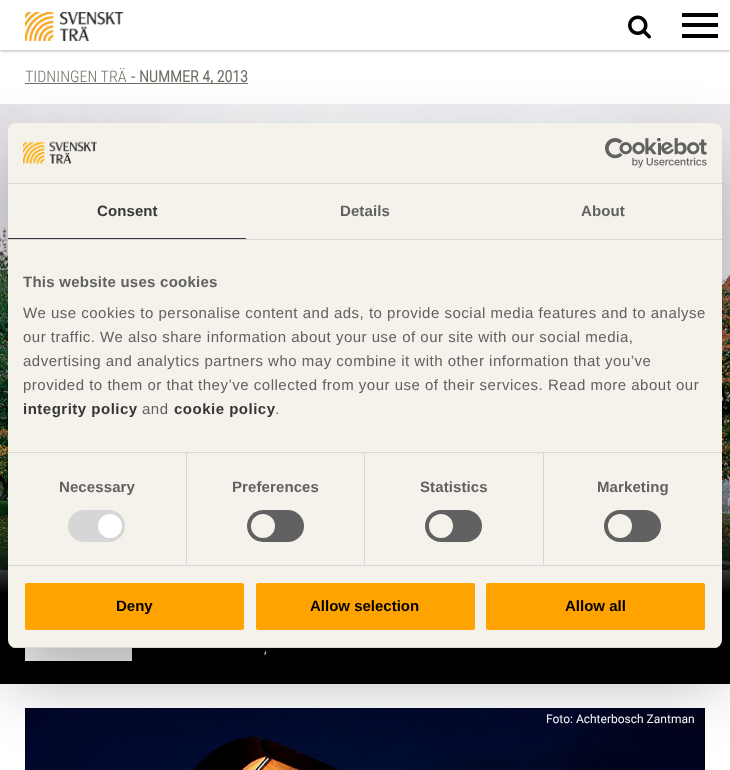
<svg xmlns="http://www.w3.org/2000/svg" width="730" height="770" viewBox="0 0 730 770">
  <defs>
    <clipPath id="clip1"><rect x="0" y="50" width="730" height="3"/></clipPath>
    <filter id="blur1" x="-50%" y="-200%" width="200%" height="500%"><feGaussianBlur stdDeviation="1.5"/></filter>
    <linearGradient id="g1" gradientUnits="userSpaceOnUse" x1="365" y1="494" x2="365" y2="594"><stop offset="0" stop-color="#000000" stop-opacity="0"/><stop offset="1" stop-color="#000000"/></linearGradient>
    <filter id="blur2" x="-50%" y="-200%" width="200%" height="500%"><feGaussianBlur stdDeviation="34"/></filter>
    <clipPath id="clip2"><rect x="8" y="123" width="714" height="525" rx="8"/></clipPath>
  </defs>
  <rect width="100%" height="100%" fill="#ffffff"/>
  <g clip-path="url(#clip1)">
    <rect x="0" y="1" width="730" height="50" fill="#000000" fill-opacity="0.3" filter="url(#blur1)"/>
  </g>
  <image x="25" y="12" width="99" height="29" href="img1.png"/>
  <image x="628" y="15" width="23" height="24" href="img2.png"/>
  <rect x="682" y="13" width="36" height="4" fill="#000000"/>
  <rect x="682" y="23" width="36" height="4" fill="#000000"/>
  <rect x="682" y="34" width="36" height="4" fill="#000000"/>
  <text x="25" y="82" font-family="Roboto Condensed" font-size="16" font-weight="300" fill="#6e6f64">TIDNINGEN TRÄ</text>
  <text x="131" y="82" font-family="Roboto" font-size="16" fill="#6e6f64">-</text>
  <rect x="25" y="83" width="223" height="1" fill="#6e6f64"/>
  <text x="139" y="82" font-family="Roboto Condensed" font-size="16" font-weight="bold" fill="#6e6f64">NUMMER 4, 2013</text>
  <image x="0" y="104" width="730" height="466" href="img3.png"/>
  <rect x="0" y="594" width="730" height="90" fill="#000000"/>
  <rect x="0" y="496" width="730" height="98" fill="url(#g1)"/>
  <rect x="25" y="648" width="107" height="13" fill="#ffffff"/>
  <text x="264" y="653" font-family="Roboto" font-size="14" fill="#ffffff">,</text>
  <image x="25" y="708" width="680" height="62" href="img4.png"/>
  <text x="546" y="723" font-family="Roboto" font-size="12" fill="#ffffff">Foto: Achterbosch Zantman</text>
  <rect x="8" y="155" width="714" height="525" rx="8" fill="#000000" fill-opacity="0.3" filter="url(#blur2)"/>
  <rect x="8" y="123" width="714" height="525" rx="8" fill="#f4f2eb"/>
  <rect x="8" y="183" width="714" height="1" fill="#d6d6d6"/>
  <image x="23" y="141" width="74" height="23" href="img5.png"/>
  <image x="605" y="138" width="102" height="30" href="img6.png"/>
  <rect x="8" y="239" width="714" height="1" fill="#d6d6d6"/>
  <rect x="8" y="238" width="238" height="1" fill="#373737"/>
  <text x="97" y="216" font-family="Liberation Sans" font-size="15" font-weight="bold" letter-spacing="0.1" fill="#373737">Consent</text>
  <text x="340" y="216" font-family="Liberation Sans" font-size="15" font-weight="bold" letter-spacing="0.1" fill="#626161">Details</text>
  <text x="581" y="216" font-family="Liberation Sans" font-size="15" font-weight="bold" letter-spacing="0.1" fill="#626161">About</text>
  <rect x="8" y="452" width="714" height="1" fill="#d6d6d6"/>
  <text x="23" y="287" font-family="Liberation Sans" font-size="15" font-weight="bold" letter-spacing="0.25" fill="#626161">This website uses cookies</text>
  <text x="23" y="318" font-family="Liberation Sans" font-size="15" letter-spacing="0.5" fill="#626161">We use cookies to personalise content and ads, to provide social media features and to analyse</text>
  <text x="23" y="342" font-family="Liberation Sans" font-size="15" letter-spacing="0.5" fill="#626161">our traffic. We also share information about your use of our site with our social media,</text>
  <text x="23" y="366" font-family="Liberation Sans" font-size="15" letter-spacing="0.5" fill="#626161">advertising and analytics partners who may combine it with other information that you’ve</text>
  <text x="23" y="390" font-family="Liberation Sans" font-size="15" letter-spacing="0.5" fill="#626161">provided to them or that they’ve collected from your use of their services. Read more about our</text>
  <text x="23" y="414" font-family="Liberation Sans" font-size="15" font-weight="bold" letter-spacing="0.5" fill="#373737">integrity policy</text>
  <text x="142" y="414" font-family="Liberation Sans" font-size="15" letter-spacing="0.5" fill="#626161">and</text>
  <text x="174" y="414" font-family="Liberation Sans" font-size="15" font-weight="bold" letter-spacing="0.5" fill="#373737">cookie policy</text>
  <text x="275" y="414" font-family="Liberation Sans" font-size="15" letter-spacing="0.5" fill="#626161">.</text>
  <rect x="8" y="565" width="714" height="1" fill="#d6d6d6"/>
  <rect x="186" y="453" width="1" height="112" fill="#d6d6d6"/>
  <text x="59" y="492" font-family="Liberation Sans" font-size="15" font-weight="bold" letter-spacing="0.1" fill="#626161">Necessary</text>
  <rect x="68" y="510" width="57" height="32" rx="16" fill="#d6d6d6"/>
  <circle cx="110" cy="526" r="12" fill="#ffffff"/>
  <rect x="364" y="453" width="1" height="112" fill="#d6d6d6"/>
  <text x="232" y="492" font-family="Liberation Sans" font-size="15" font-weight="bold" letter-spacing="0.1" fill="#626161">Preferences</text>
  <rect x="247" y="510" width="57" height="32" rx="16" fill="#626161"/>
  <circle cx="263" cy="526" r="12" fill="#f4f2eb"/>
  <rect x="543" y="453" width="1" height="112" fill="#d6d6d6"/>
  <text x="420" y="492" font-family="Liberation Sans" font-size="15" font-weight="bold" letter-spacing="0.1" fill="#626161">Statistics</text>
  <rect x="425" y="510" width="57" height="32" rx="16" fill="#626161"/>
  <circle cx="441" cy="526" r="12" fill="#f4f2eb"/>
  <text x="597" y="492" font-family="Liberation Sans" font-size="15" font-weight="bold" letter-spacing="0.1" fill="#626161">Marketing</text>
  <rect x="604" y="510" width="57" height="32" rx="16" fill="#626161"/>
  <circle cx="620" cy="526" r="12" fill="#f4f2eb"/>
  <g clip-path="url(#clip2)">
    <rect x="8" y="647" width="714" height="1" fill="#d6d6d6"/>
  </g>
  <rect x="24" y="582" width="221" height="49" rx="3" fill="#ffa300" stroke="#f4f2eb" stroke-width="2"/>
  <text x="116" y="611" font-family="Liberation Sans" font-size="15" font-weight="bold" fill="#000000">Deny</text>
  <rect x="255" y="582" width="221" height="49" rx="3" fill="#ffa300" stroke="#f4f2eb" stroke-width="2"/>
  <text x="310" y="611" font-family="Liberation Sans" font-size="15" font-weight="bold" fill="#000000">Allow selection</text>
  <rect x="485" y="582" width="221" height="49" rx="3" fill="#ffa300" stroke="#f4f2eb" stroke-width="2"/>
  <text x="565" y="611" font-family="Liberation Sans" font-size="15" font-weight="bold" fill="#000000">Allow all</text>
</svg>
